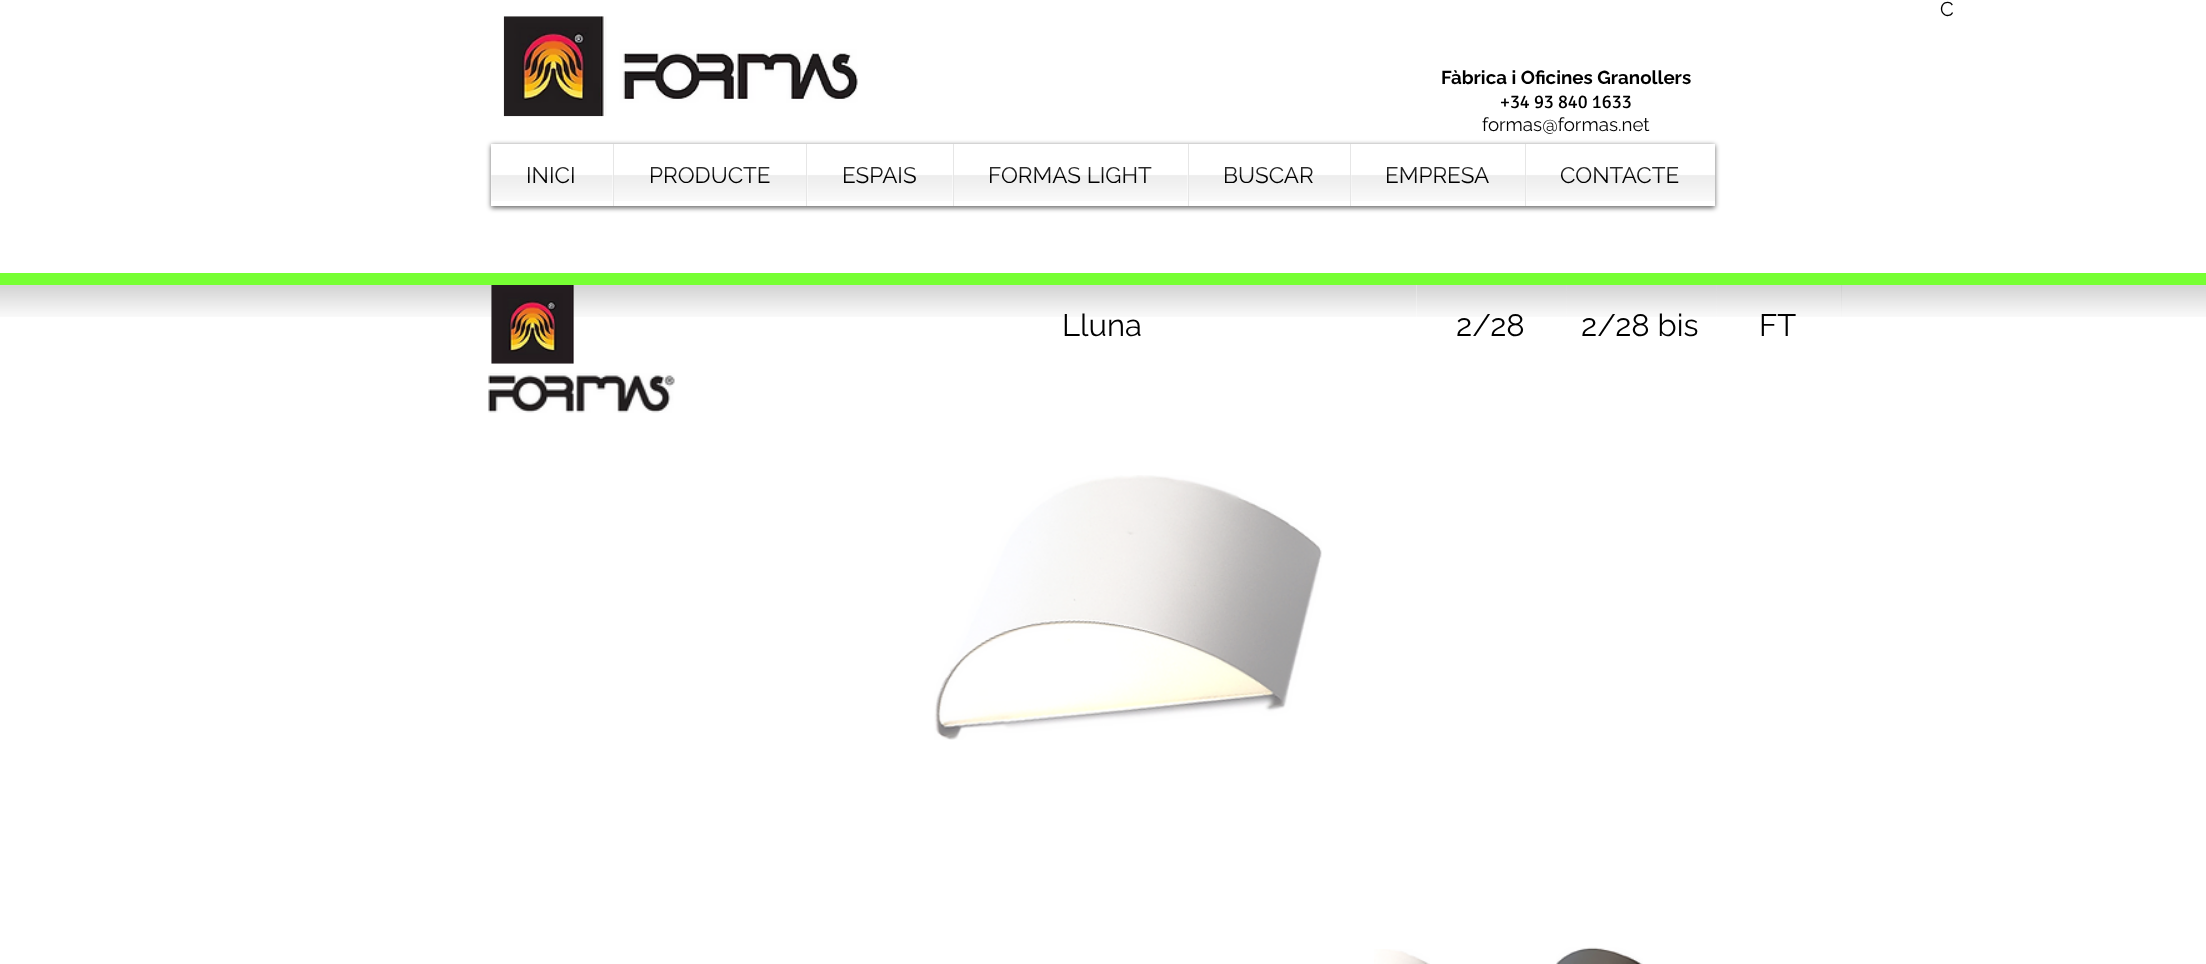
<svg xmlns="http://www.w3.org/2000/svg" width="2206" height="964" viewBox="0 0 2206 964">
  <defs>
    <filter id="blur1" x="-50%" y="-200%" width="200%" height="500%"><feGaussianBlur stdDeviation="2.5"/></filter>
  </defs>
  <rect width="100%" height="100%" fill="#ffffff"/>
  <text x="1940" y="16" font-family="Raleway" font-size="20" fill="#000000">C</text>
  <image x="503" y="16" width="355" height="101" href="img1.png"/>
  <text x="1441" y="84" font-family="Raleway" font-size="18.75" font-weight="bold" fill="#000000">Fàbrica i Oficines Granollers</text>
  <text x="1500" y="108" font-family="Signika" font-size="18.75" fill="#000000">+34 93 840 1633</text>
  <text x="1482" y="131" font-family="Raleway" font-size="18.75" fill="#000000">formas@formas.net</text>
  <rect x="491" y="145" width="1224" height="63" fill="#000000" fill-opacity="0.6" filter="url(#blur1)"/>
  <rect x="491" y="144" width="122" height="62" fill="#ffffff"/>
  <text x="526" y="183" font-family="Raleway" font-size="22.5" fill="#000000">INICI</text>
  <image x="491" y="167" width="122" height="34" href="img2.png"/>
  <rect x="614" y="144" width="192" height="62" fill="#ffffff"/>
  <rect x="613" y="144" width="1" height="62" fill="#e6e6e6"/>
  <text x="649" y="183" font-family="Raleway" font-size="22.5" fill="#000000">PRODUCTE</text>
  <image x="614" y="167" width="192" height="34" href="img3.png"/>
  <rect x="807" y="144" width="146" height="62" fill="#ffffff"/>
  <rect x="806" y="144" width="1" height="62" fill="#e6e6e6"/>
  <text x="842" y="183" font-family="Raleway" font-size="22.5" fill="#000000">ESPAIS</text>
  <image x="807" y="167" width="146" height="34" href="img4.png"/>
  <rect x="954" y="144" width="234" height="62" fill="#ffffff"/>
  <rect x="953" y="144" width="1" height="62" fill="#e6e6e6"/>
  <text x="988" y="183" font-family="Raleway" font-size="22.5" fill="#000000">FORMAS LIGHT</text>
  <image x="954" y="167" width="234" height="34" href="img5.png"/>
  <rect x="1189" y="144" width="161" height="62" fill="#ffffff"/>
  <rect x="1188" y="144" width="1" height="62" fill="#e6e6e6"/>
  <text x="1223" y="183" font-family="Raleway" font-size="22.5" fill="#000000">BUSCAR</text>
  <image x="1189" y="167" width="161" height="34" href="img6.png"/>
  <rect x="1351" y="144" width="174" height="62" fill="#ffffff"/>
  <rect x="1350" y="144" width="1" height="62" fill="#e6e6e6"/>
  <text x="1385" y="183" font-family="Raleway" font-size="22.5" fill="#000000">EMPRESA</text>
  <image x="1351" y="167" width="174" height="34" href="img7.png"/>
  <rect x="1526" y="144" width="189" height="62" fill="#ffffff"/>
  <rect x="1525" y="144" width="1" height="62" fill="#e6e6e6"/>
  <text x="1560" y="183" font-family="Raleway" font-size="22.5" fill="#000000">CONTACTE</text>
  <image x="1526" y="167" width="189" height="34" href="img8.png"/>
  <rect x="0" y="273" width="2206" height="12" fill="#77ff33"/>
  <image x="0" y="285" width="2206" height="32" href="img10.png"/>
  <image x="491" y="285" width="83" height="79" href="img9.png"/>
  <text x="1062" y="336" font-family="Raleway" font-size="31" fill="#000000">Lluna</text>
  <rect x="1416" y="285" width="425" height="32" fill="#ffffff"/>
  <image x="1716" y="285" width="126" height="32" href="img12.png"/>
  <image x="1566" y="285" width="151" height="32" href="img11.png"/>
  <image x="1416" y="285" width="151" height="32" href="img11.png"/>
  <text x="1456" y="336" font-family="Raleway" font-size="31" fill="#000000">2/28</text>
  <text x="1581" y="336" font-family="Raleway" font-size="31" fill="#000000">2/28 bis</text>
  <text x="1759" y="336" font-family="Raleway" font-size="31" fill="#000000">FT</text>
  <image x="488" y="373" width="187" height="40" href="img13.png"/>
  <image x="934" y="475" width="388" height="265" href="img14.png"/>
  <image x="1374" y="949" width="56" height="15" href="img15.png"/>
  <image x="1556" y="947" width="87" height="17" href="img16.png"/>
</svg>
